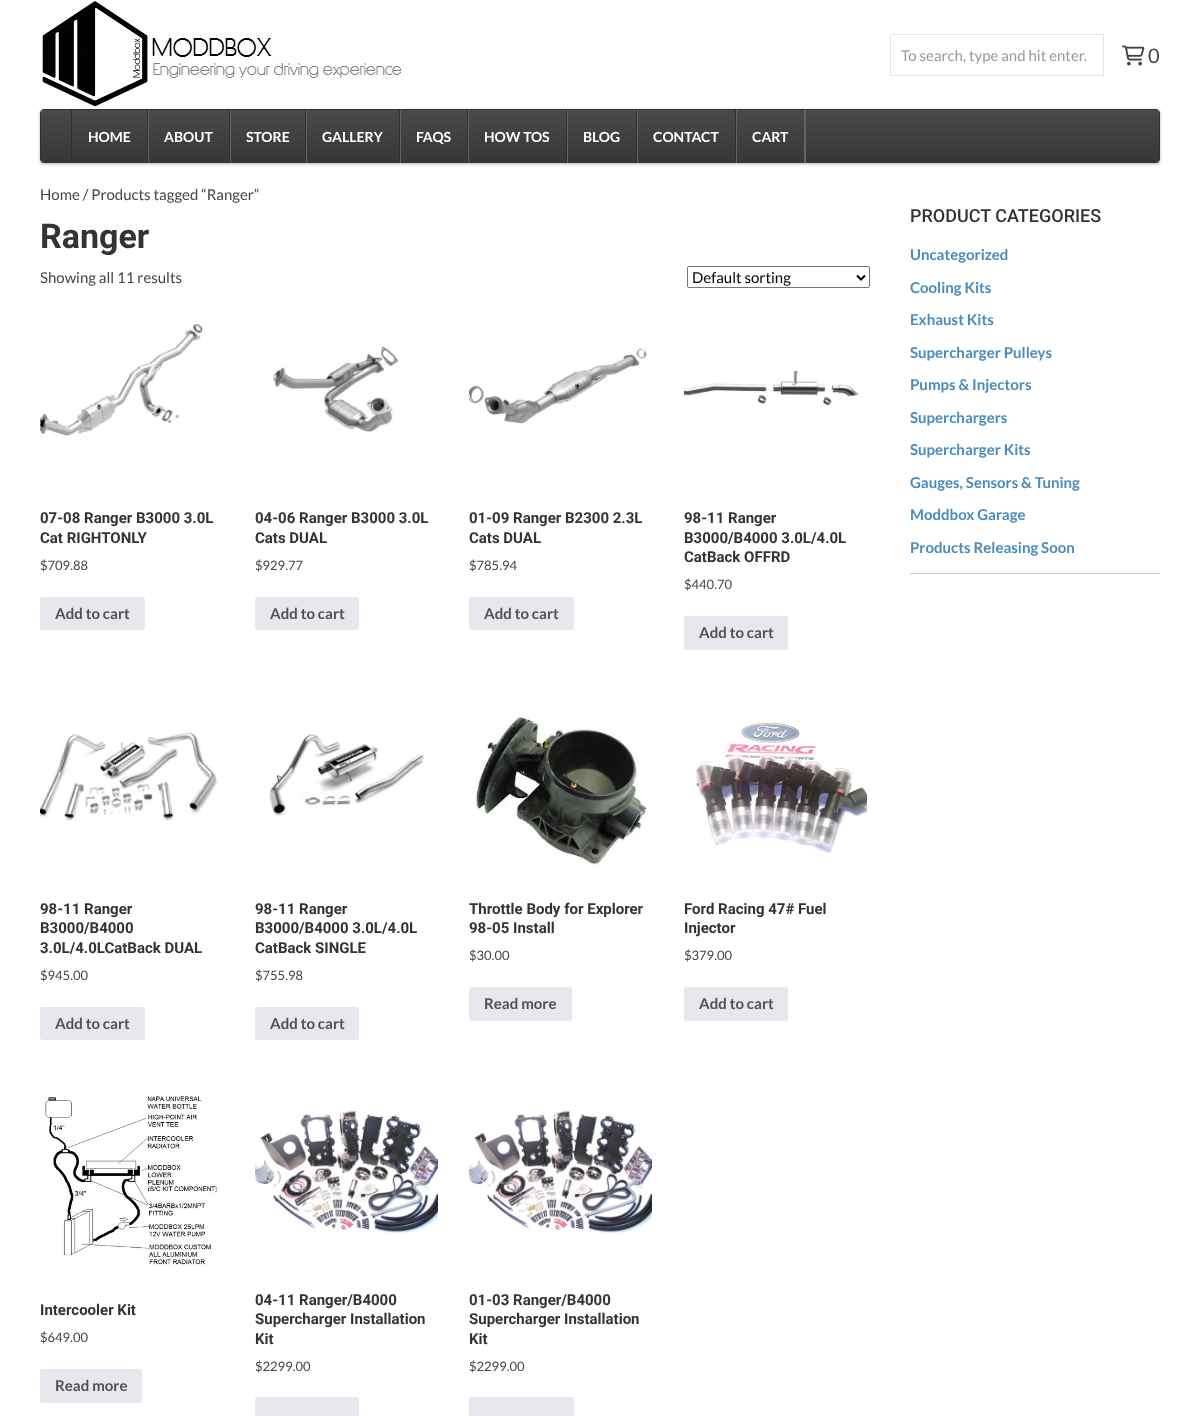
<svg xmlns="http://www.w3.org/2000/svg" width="1200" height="1416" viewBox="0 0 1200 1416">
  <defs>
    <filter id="blur1" x="-50%" y="-200%" width="200%" height="500%"><feGaussianBlur stdDeviation="1.5"/></filter>
    <linearGradient id="g1" gradientUnits="userSpaceOnUse" x1="600" y1="110" x2="600" y2="163"><stop offset="0" stop-color="#4a4a4a"/><stop offset="1" stop-color="#363636"/></linearGradient>
  </defs>
  <rect width="100%" height="100%" fill="#ffffff"/>
  <rect x="40" y="110" width="1120" height="54" rx="4" fill="#000000" fill-opacity="0.3" filter="url(#blur1)"/>
  <image x="40" y="1" width="365" height="108" href="img1.png"/>
  <rect x="890.5" y="34.5" width="213" height="41" fill="none" stroke="#e5e5e5"/>
  <text x="901" y="61" font-family="Lato" font-size="15" fill="#999999">To search, type and hit enter.</text>
  <image x="1122" y="45" width="23" height="21" href="img2.png"/>
  <text x="1148" y="63" font-family="Lato" font-size="20" fill="#444444">0</text>
  <path d="M44 110H1156C1158 110 1159 111 1159 113V159C1159 161 1158 163 1156 163H44C42 163 41 161 41 159V113C41 111 42 110 44 110Z" fill="url(#g1)"/>
  <path d="M44 109H1156C1158 109 1160 111 1160 113V159C1160 161 1158 163 1156 163H44C42 163 40 161 40 159V113C40 111 42 109 44 109ZM44 110H1156C1158 110 1159 111 1159 113V159C1159 161 1158 163 1156 163H44C42 163 41 161 41 159V113C41 111 42 110 44 110Z" fill="#2f2f2f" fill-rule="evenodd"/>
  <rect x="148" y="110" width="1" height="53" fill="#646464"/>
  <rect x="71" y="110" width="1" height="53" fill="#2f2f2f"/>
  <text x="88" y="142" font-family="Lato" font-size="14" font-weight="bold" fill="#ffffff">HOME</text>
  <rect x="230" y="110" width="1" height="53" fill="#646464"/>
  <rect x="147" y="110" width="1" height="53" fill="#2f2f2f"/>
  <text x="164" y="142" font-family="Lato" font-size="14" font-weight="bold" fill="#ffffff">ABOUT</text>
  <rect x="306" y="110" width="1" height="53" fill="#646464"/>
  <rect x="229" y="110" width="1" height="53" fill="#2f2f2f"/>
  <text x="246" y="142" font-family="Lato" font-size="14" font-weight="bold" fill="#ffffff">STORE</text>
  <rect x="400" y="110" width="1" height="53" fill="#646464"/>
  <rect x="305" y="110" width="1" height="53" fill="#2f2f2f"/>
  <text x="322" y="142" font-family="Lato" font-size="14" font-weight="bold" fill="#ffffff">GALLERY</text>
  <rect x="468" y="110" width="1" height="53" fill="#646464"/>
  <rect x="399" y="110" width="1" height="53" fill="#2f2f2f"/>
  <text x="416" y="142" font-family="Lato" font-size="14" font-weight="bold" fill="#ffffff">FAQS</text>
  <rect x="567" y="110" width="1" height="53" fill="#646464"/>
  <rect x="467" y="110" width="1" height="53" fill="#2f2f2f"/>
  <text x="484" y="142" font-family="Lato" font-size="14" font-weight="bold" fill="#ffffff">HOW TOS</text>
  <rect x="637" y="110" width="1" height="53" fill="#646464"/>
  <rect x="566" y="110" width="1" height="53" fill="#2f2f2f"/>
  <text x="583" y="142" font-family="Lato" font-size="14" font-weight="bold" fill="#ffffff">BLOG</text>
  <rect x="736" y="110" width="1" height="53" fill="#646464"/>
  <rect x="636" y="110" width="1" height="53" fill="#2f2f2f"/>
  <text x="653" y="142" font-family="Lato" font-size="14" font-weight="bold" fill="#ffffff">CONTACT</text>
  <rect x="804" y="110" width="2" height="53" fill="#646464"/>
  <rect x="735" y="110" width="1" height="53" fill="#2f2f2f"/>
  <text x="752" y="142" font-family="Lato" font-size="14" font-weight="bold" fill="#ffffff">CART</text>
  <text x="40" y="200" font-family="Lato" font-size="15" fill="#444444">Home / Products tagged “Ranger”</text>
  <text x="40" y="248" font-family="Roboto" font-size="34" font-weight="bold" fill="#333333">Ranger</text>
  <text x="40" y="283" font-family="Lato" font-size="15" fill="#444444">Showing all 11 results</text>
  <rect x="687.5" y="266.5" width="182" height="21" rx="1.5" fill="none" stroke="#767676"/>
  <path d="M857 275.5L861 279.5L865 275.5" fill="none" stroke="#000000" stroke-width="2"/>
  <text x="692" y="283" font-family="Lato" font-size="15" fill="#000000">Default sorting</text>
  <image x="40" y="323" width="163" height="113" href="img3.png"/>
  <text x="40" y="523" font-family="Roboto" font-size="15" font-weight="bold" fill="#333333">07-08 Ranger B3000 3.0L</text>
  <text x="40" y="543" font-family="Roboto" font-size="15" font-weight="bold" fill="#333333">Cat RIGHTONLY</text>
  <text x="40" y="570" font-family="Lato" font-size="13" fill="#444444">$709.88</text>
  <rect x="40" y="597" width="105" height="33" rx="3" fill="#e9e6ed"/>
  <text x="55" y="619" font-family="Lato" font-size="15" font-weight="bold" fill="#515151">Add to cart</text>
  <image x="273" y="346" width="126" height="87" href="img4.png"/>
  <text x="255" y="523" font-family="Roboto" font-size="15" font-weight="bold" fill="#333333">04-06 Ranger B3000 3.0L</text>
  <text x="255" y="543" font-family="Roboto" font-size="15" font-weight="bold" fill="#333333">Cats DUAL</text>
  <text x="255" y="570" font-family="Lato" font-size="13" fill="#444444">$929.77</text>
  <rect x="255" y="597" width="104" height="33" rx="3" fill="#e9e6ed"/>
  <text x="270" y="619" font-family="Lato" font-size="15" font-weight="bold" fill="#515151">Add to cart</text>
  <image x="469" y="348" width="178" height="76" href="img5.png"/>
  <text x="469" y="523" font-family="Roboto" font-size="15" font-weight="bold" fill="#333333">01-09 Ranger B2300 2.3L</text>
  <text x="469" y="543" font-family="Roboto" font-size="15" font-weight="bold" fill="#333333">Cats DUAL</text>
  <text x="469" y="570" font-family="Lato" font-size="13" fill="#444444">$785.94</text>
  <rect x="469" y="597" width="105" height="33" rx="3" fill="#e9e6ed"/>
  <text x="484" y="619" font-family="Lato" font-size="15" font-weight="bold" fill="#515151">Add to cart</text>
  <image x="684" y="370" width="175" height="36" href="img6.png"/>
  <text x="684" y="523" font-family="Roboto" font-size="15" font-weight="bold" fill="#333333">98-11 Ranger</text>
  <text x="684" y="543" font-family="Roboto" font-size="15" font-weight="bold" fill="#333333">B3000/B4000 3.0L/4.0L</text>
  <text x="684" y="562" font-family="Roboto" font-size="15" font-weight="bold" fill="#333333">CatBack OFFRD</text>
  <text x="684" y="589" font-family="Lato" font-size="13" fill="#444444">$440.70</text>
  <rect x="684" y="616" width="104" height="34" rx="3" fill="#e9e6ed"/>
  <text x="699" y="638" font-family="Lato" font-size="15" font-weight="bold" fill="#515151">Add to cart</text>
  <image x="40" y="732" width="178" height="89" href="img7.png"/>
  <text x="40" y="914" font-family="Roboto" font-size="15" font-weight="bold" fill="#333333">98-11 Ranger</text>
  <text x="40" y="933" font-family="Roboto" font-size="15" font-weight="bold" fill="#333333">B3000/B4000</text>
  <text x="40" y="953" font-family="Roboto" font-size="15" font-weight="bold" fill="#333333">3.0L/4.0LCatBack DUAL</text>
  <text x="40" y="980" font-family="Lato" font-size="13" fill="#444444">$945.00</text>
  <rect x="40" y="1007" width="105" height="33" rx="3" fill="#e9e6ed"/>
  <text x="55" y="1029" font-family="Lato" font-size="15" font-weight="bold" fill="#515151">Add to cart</text>
  <image x="269" y="734" width="155" height="83" href="img8.png"/>
  <text x="255" y="914" font-family="Roboto" font-size="15" font-weight="bold" fill="#333333">98-11 Ranger</text>
  <text x="255" y="933" font-family="Roboto" font-size="15" font-weight="bold" fill="#333333">B3000/B4000 3.0L/4.0L</text>
  <text x="255" y="953" font-family="Roboto" font-size="15" font-weight="bold" fill="#333333">CatBack SINGLE</text>
  <text x="255" y="980" font-family="Lato" font-size="13" fill="#444444">$755.98</text>
  <rect x="255" y="1007" width="104" height="33" rx="3" fill="#e9e6ed"/>
  <text x="270" y="1029" font-family="Lato" font-size="15" font-weight="bold" fill="#515151">Add to cart</text>
  <image x="476" y="713" width="173" height="155" href="img9.png"/>
  <text x="469" y="914" font-family="Roboto" font-size="15" font-weight="bold" fill="#333333">Throttle Body for Explorer</text>
  <text x="469" y="933" font-family="Roboto" font-size="15" font-weight="bold" fill="#333333">98-05 Install</text>
  <text x="469" y="960" font-family="Lato" font-size="13" fill="#444444">$30.00</text>
  <rect x="469" y="987" width="103" height="34" rx="3" fill="#e9e6ed"/>
  <text x="484" y="1009" font-family="Lato" font-size="15" font-weight="bold" fill="#515151">Read more</text>
  <image x="695" y="722" width="172" height="133" href="img10.png"/>
  <text x="684" y="914" font-family="Roboto" font-size="15" font-weight="bold" fill="#333333">Ford Racing 47# Fuel</text>
  <text x="684" y="933" font-family="Roboto" font-size="15" font-weight="bold" fill="#333333">Injector</text>
  <text x="684" y="960" font-family="Lato" font-size="13" fill="#444444">$379.00</text>
  <rect x="684" y="987" width="104" height="34" rx="3" fill="#e9e6ed"/>
  <text x="699" y="1009" font-family="Lato" font-size="15" font-weight="bold" fill="#515151">Add to cart</text>
  <image x="44" y="1094" width="173" height="172" href="img11.png"/>
  <text x="40" y="1315" font-family="Roboto" font-size="15" font-weight="bold" fill="#333333">Intercooler Kit</text>
  <text x="40" y="1342" font-family="Lato" font-size="13" fill="#444444">$649.00</text>
  <rect x="40" y="1369" width="102" height="34" rx="3" fill="#e9e6ed"/>
  <text x="55" y="1391" font-family="Lato" font-size="15" font-weight="bold" fill="#515151">Read more</text>
  <image x="255" y="1109" width="183" height="127" href="img12.png"/>
  <text x="255" y="1305" font-family="Roboto" font-size="15" font-weight="bold" fill="#333333">04-11 Ranger/B4000</text>
  <text x="255" y="1324" font-family="Roboto" font-size="15" font-weight="bold" fill="#333333">Supercharger Installation</text>
  <text x="255" y="1344" font-family="Roboto" font-size="15" font-weight="bold" fill="#333333">Kit</text>
  <text x="255" y="1371" font-family="Lato" font-size="13" fill="#444444">$2299.00</text>
  <rect x="255" y="1397" width="104" height="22" rx="3" fill="#e9e6ed"/>
  <image x="469" y="1109" width="183" height="127" href="img12.png"/>
  <text x="469" y="1305" font-family="Roboto" font-size="15" font-weight="bold" fill="#333333">01-03 Ranger/B4000</text>
  <text x="469" y="1324" font-family="Roboto" font-size="15" font-weight="bold" fill="#333333">Supercharger Installation</text>
  <text x="469" y="1344" font-family="Roboto" font-size="15" font-weight="bold" fill="#333333">Kit</text>
  <text x="469" y="1371" font-family="Lato" font-size="13" fill="#444444">$2299.00</text>
  <rect x="469" y="1397" width="105" height="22" rx="3" fill="#e9e6ed"/>
  <rect x="910" y="573" width="250" height="1" fill="#cccccc"/>
  <text x="910" y="222" font-family="Roboto" font-size="18" font-weight="500" fill="#333333">PRODUCT CATEGORIES</text>
  <text x="910" y="260" font-family="Lato" font-size="15" font-weight="bold" fill="#498bbb">Uncategorized</text>
  <text x="910" y="293" font-family="Lato" font-size="15" font-weight="bold" fill="#498bbb">Cooling Kits</text>
  <text x="910" y="325" font-family="Lato" font-size="15" font-weight="bold" fill="#498bbb">Exhaust Kits</text>
  <text x="910" y="358" font-family="Lato" font-size="15" font-weight="bold" fill="#498bbb">Supercharger Pulleys</text>
  <text x="910" y="390" font-family="Lato" font-size="15" font-weight="bold" fill="#498bbb">Pumps &amp; Injectors</text>
  <text x="910" y="423" font-family="Lato" font-size="15" font-weight="bold" fill="#498bbb">Superchargers</text>
  <text x="910" y="455" font-family="Lato" font-size="15" font-weight="bold" fill="#498bbb">Supercharger Kits</text>
  <text x="910" y="488" font-family="Lato" font-size="15" font-weight="bold" fill="#498bbb">Gauges, Sensors &amp; Tuning</text>
  <text x="910" y="520" font-family="Lato" font-size="15" font-weight="bold" fill="#498bbb">Moddbox Garage</text>
  <text x="910" y="553" font-family="Lato" font-size="15" font-weight="bold" fill="#498bbb">Products Releasing Soon</text>
</svg>
